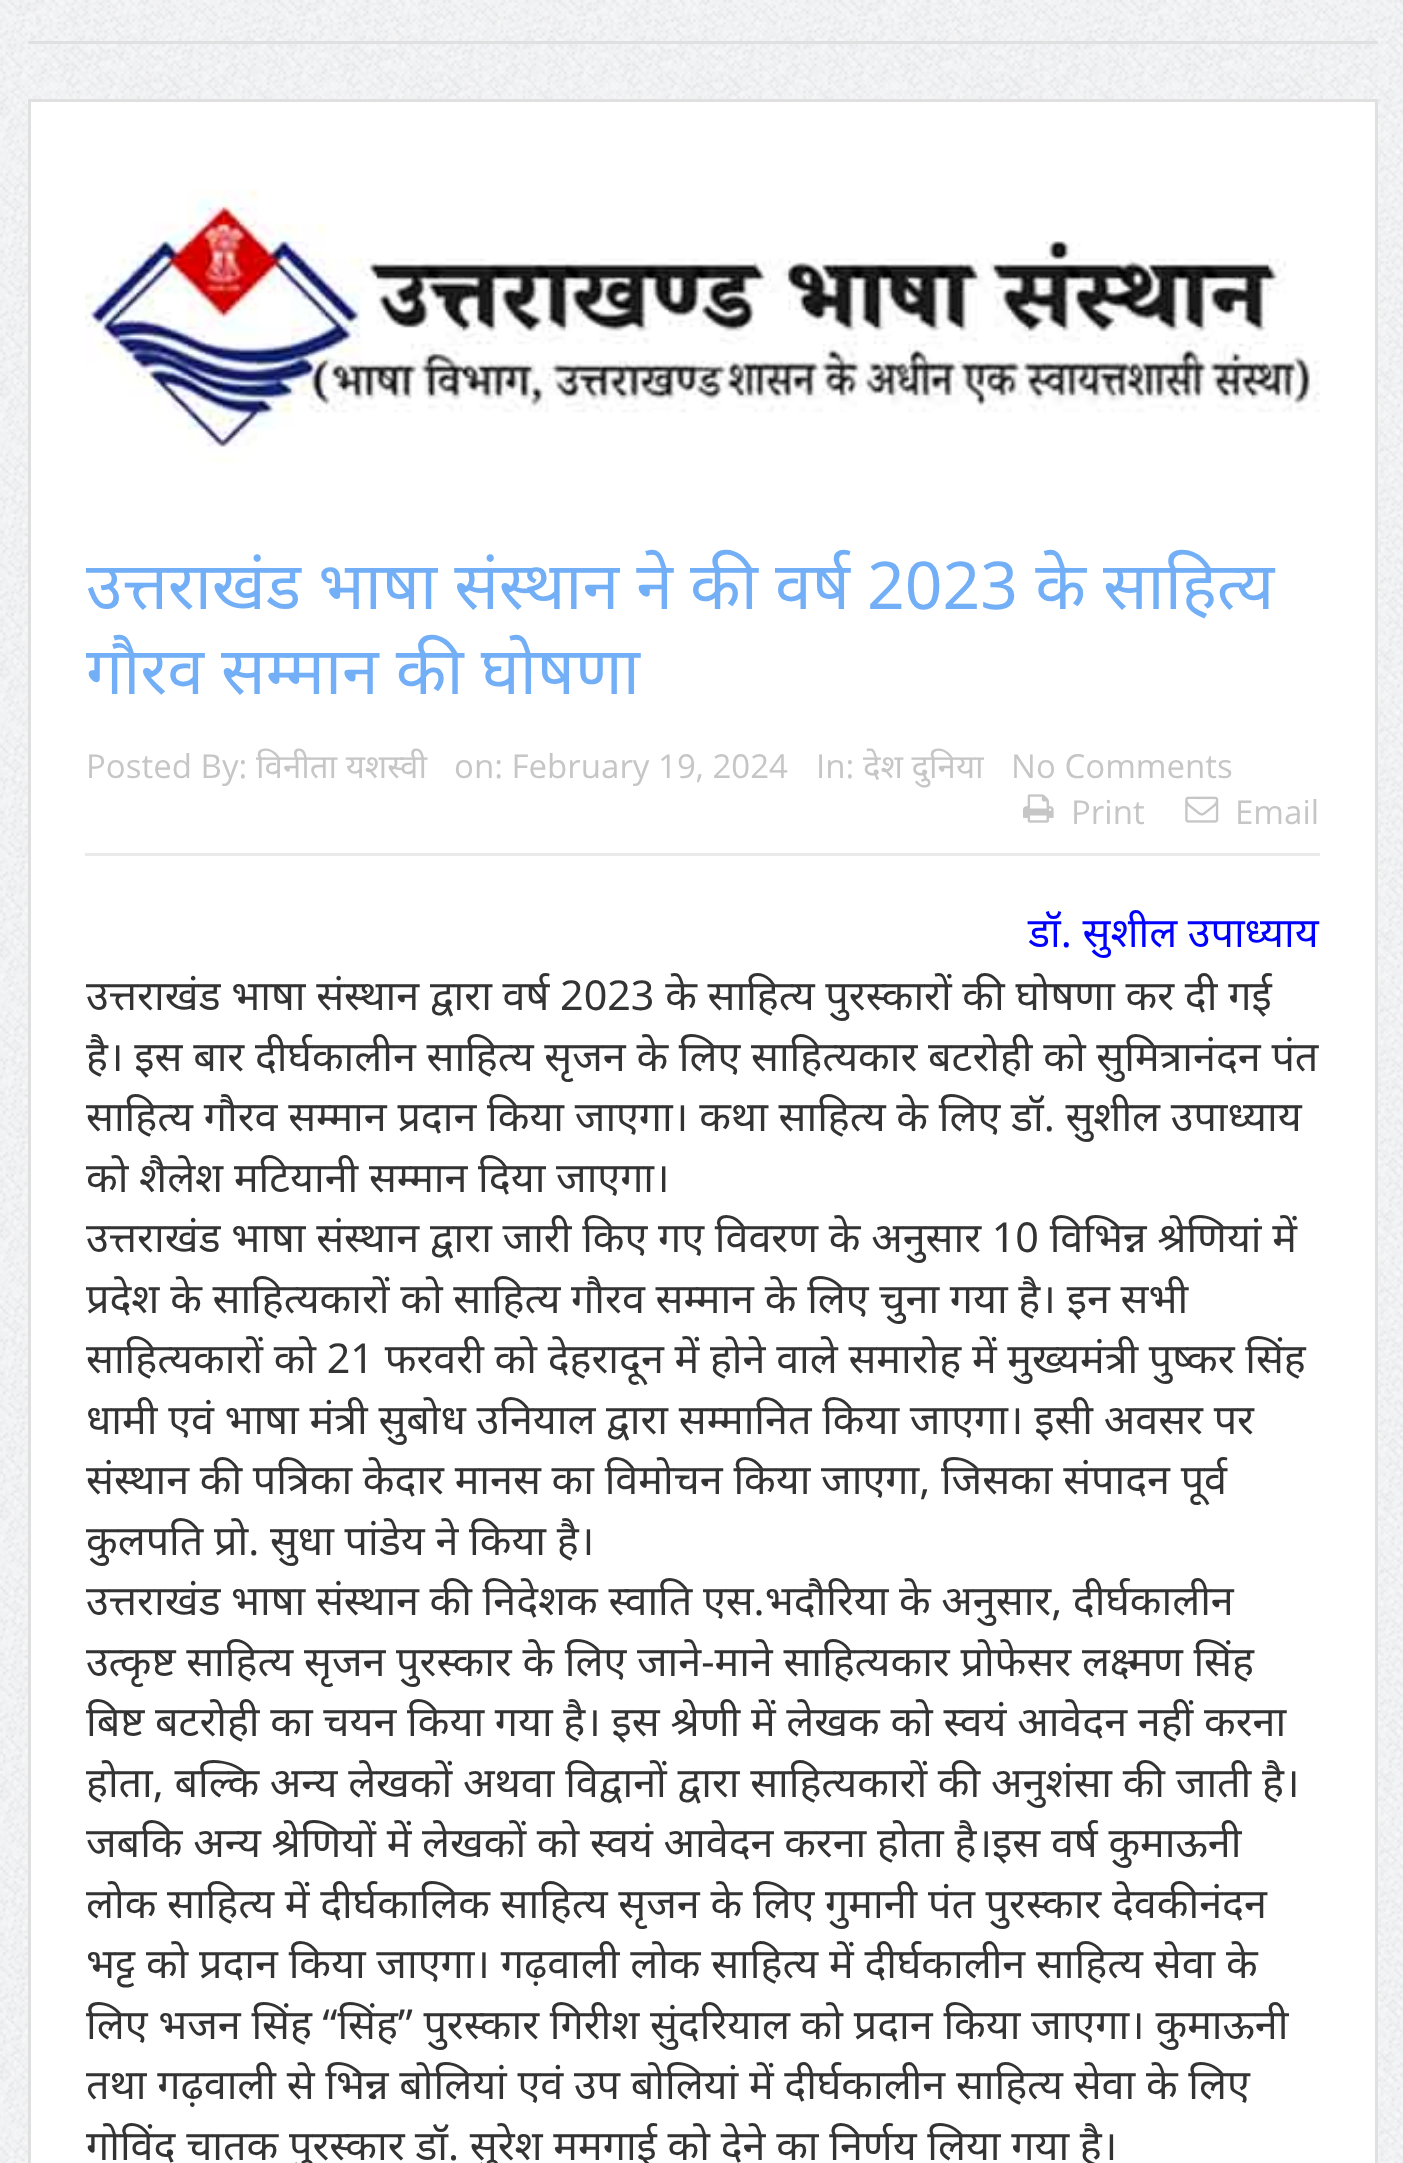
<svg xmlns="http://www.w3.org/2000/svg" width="1403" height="2163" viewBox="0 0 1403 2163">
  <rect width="100%" height="100%" fill="#ffffff"/>
  <image x="0" y="0" width="1403" height="2163" href="img1.png"/>
  <rect x="28" y="41" width="1350" height="3" fill="#e0e0e0"/>
  <rect x="29.5" y="100.5" width="1347" height="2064" fill="#ffffff" stroke="#e0e0e0" stroke-width="3"/>
  <image x="85" y="189" width="1235" height="274" href="img2.png"/>
  <text x="86" y="609" font-family="Noto Sans" font-size="66" fill="#73aff6">उत्तराखंड भाषा संस्थान ने की वर्ष 2023 के साहित्य</text>
  <text x="86" y="694" font-family="Noto Sans" font-size="66" fill="#73aff6">गौरव सम्मान की घोषणा</text>
  <rect x="85" y="853" width="1235" height="3" fill="#eaeaea"/>
  <text x="86" y="778" font-family="Open Sans" font-size="33" fill="#c6c6c6">Posted By:</text>
  <text x="256" y="778" font-family="Noto Sans" font-size="33" fill="#c6c6c6">विनीता यशस्वी</text>
  <text x="454" y="778" font-family="Open Sans" font-size="33" fill="#c6c6c6">on: February 19, 2024</text>
  <text x="816" y="778" font-family="Open Sans" font-size="33" fill="#c6c6c6">In:</text>
  <text x="863" y="778" font-family="Noto Sans" font-size="33" fill="#c6c6c6">देश दुनिया</text>
  <text x="1011" y="778" font-family="Open Sans" font-size="33" fill="#c6c6c6">No Comments</text>
  <image x="1023" y="794" width="31" height="29" href="img3.png"/>
  <text x="1071" y="824" font-family="Open Sans" font-size="33" fill="#c6c6c6">Print</text>
  <image x="1185" y="796" width="34" height="27" href="img4.png"/>
  <text x="1235" y="824" font-family="Open Sans" font-size="33" fill="#c6c6c6">Email</text>
  <text x="1028" y="947" font-family="Noto Sans" font-size="41.25" fill="#0000ff">डॉ. सुशील उपाध्याय</text>
  <text x="86" y="1010" font-family="Noto Sans" font-size="41.25" fill="#333333">उत्तराखंड भाषा संस्थान द्वारा वर्ष 2023 के साहित्य पुरस्कारों की घोषणा कर दी गई</text>
  <text x="86" y="1071" font-family="Noto Sans" font-size="41.25" fill="#333333">है। इस बार दीर्घकालीन साहित्य सृजन के लिए साहित्यकार बटरोही को सुमित्रानंदन पंत</text>
  <text x="86" y="1131" font-family="Noto Sans" font-size="41.25" fill="#333333">साहित्य गौरव सम्मान प्रदान किया जाएगा। कथा साहित्य के लिए डॉ. सुशील उपाध्याय</text>
  <text x="86" y="1192" font-family="Noto Sans" font-size="41.25" fill="#333333">को शैलेश मटियानी सम्मान दिया जाएगा।</text>
  <text x="86" y="1252" font-family="Noto Sans" font-size="41.25" fill="#333333">उत्तराखंड भाषा संस्थान द्वारा जारी किए गए विवरण के अनुसार 10 विभिन्न श्रेणियां में</text>
  <text x="86" y="1313" font-family="Noto Sans" font-size="41.25" fill="#333333">प्रदेश के साहित्यकारों को साहित्य गौरव सम्मान के लिए चुना गया है। इन सभी</text>
  <text x="86" y="1373" font-family="Noto Sans" font-size="41.25" fill="#333333">साहित्यकारों को 21 फरवरी को देहरादून में होने वाले समारोह में मुख्यमंत्री पुष्कर सिंह</text>
  <text x="86" y="1434" font-family="Noto Sans" font-size="41.25" fill="#333333">धामी एवं भाषा मंत्री सुबोध उनियाल द्वारा सम्मानित किया जाएगा। इसी अवसर पर</text>
  <text x="86" y="1494" font-family="Noto Sans" font-size="41.25" fill="#333333">संस्थान की पत्रिका केदार मानस का विमोचन किया जाएगा, जिसका संपादन पूर्व</text>
  <text x="86" y="1555" font-family="Noto Sans" font-size="41.25" fill="#333333">कुलपति प्रो. सुधा पांडेय ने किया है।</text>
  <text x="86" y="1615" word-spacing="-0.1" font-family="Noto Sans" font-size="41.25" fill="#333333">उत्तराखंड भाषा संस्थान की निदेशक स्वाति एस.भदौरिया के अनुसार, दीर्घकालीन</text>
  <text x="86" y="1676" font-family="Noto Sans" font-size="41.25" fill="#333333">उत्कृष्ट साहित्य सृजन पुरस्कार के लिए जाने-माने साहित्यकार प्रोफेसर लक्ष्मण सिंह</text>
  <text x="86" y="1736" font-family="Noto Sans" font-size="41.25" fill="#333333">बिष्ट बटरोही का चयन किया गया है। इस श्रेणी में लेखक को स्वयं आवेदन नहीं करना</text>
  <text x="86" y="1797" font-family="Noto Sans" font-size="41.25" fill="#333333">होता, बल्कि अन्य लेखकों अथवा विद्वानों द्वारा साहित्यकारों की अनुशंसा की जाती है।</text>
  <text x="86" y="1857" font-family="Noto Sans" font-size="41.25" fill="#333333">जबकि अन्य श्रेणियों में लेखकों को स्वयं आवेदन करना होता है।इस वर्ष कुमाऊनी</text>
  <text x="86" y="1918" font-family="Noto Sans" font-size="41.25" fill="#333333">लोक साहित्य में दीर्घकालिक साहित्य सृजन के लिए गुमानी पंत पुरस्कार देवकीनंदन</text>
  <text x="86" y="1978" font-family="Noto Sans" font-size="41.25" fill="#333333">भट्ट को प्रदान किया जाएगा। गढ़वाली लोक साहित्य में दीर्घकालीन साहित्य सेवा के</text>
  <text x="86" y="2039" font-family="Noto Sans" font-size="41.25" fill="#333333">लिए भजन सिंह “सिंह” पुरस्कार गिरीश सुंदरियाल को प्रदान किया जाएगा। कुमाऊनी</text>
  <text x="86" y="2099" font-family="Noto Sans" font-size="41.25" fill="#333333">तथा गढ़वाली से भिन्न बोलियां एवं उप बोलियां में दीर्घकालीन साहित्य सेवा के लिए</text>
  <text x="86" y="2160" font-family="Noto Sans" font-size="41.25" fill="#333333">गोविंद चातक पुरस्कार डॉ. सुरेश ममगाई को देने का निर्णय लिया गया है।</text>
</svg>
